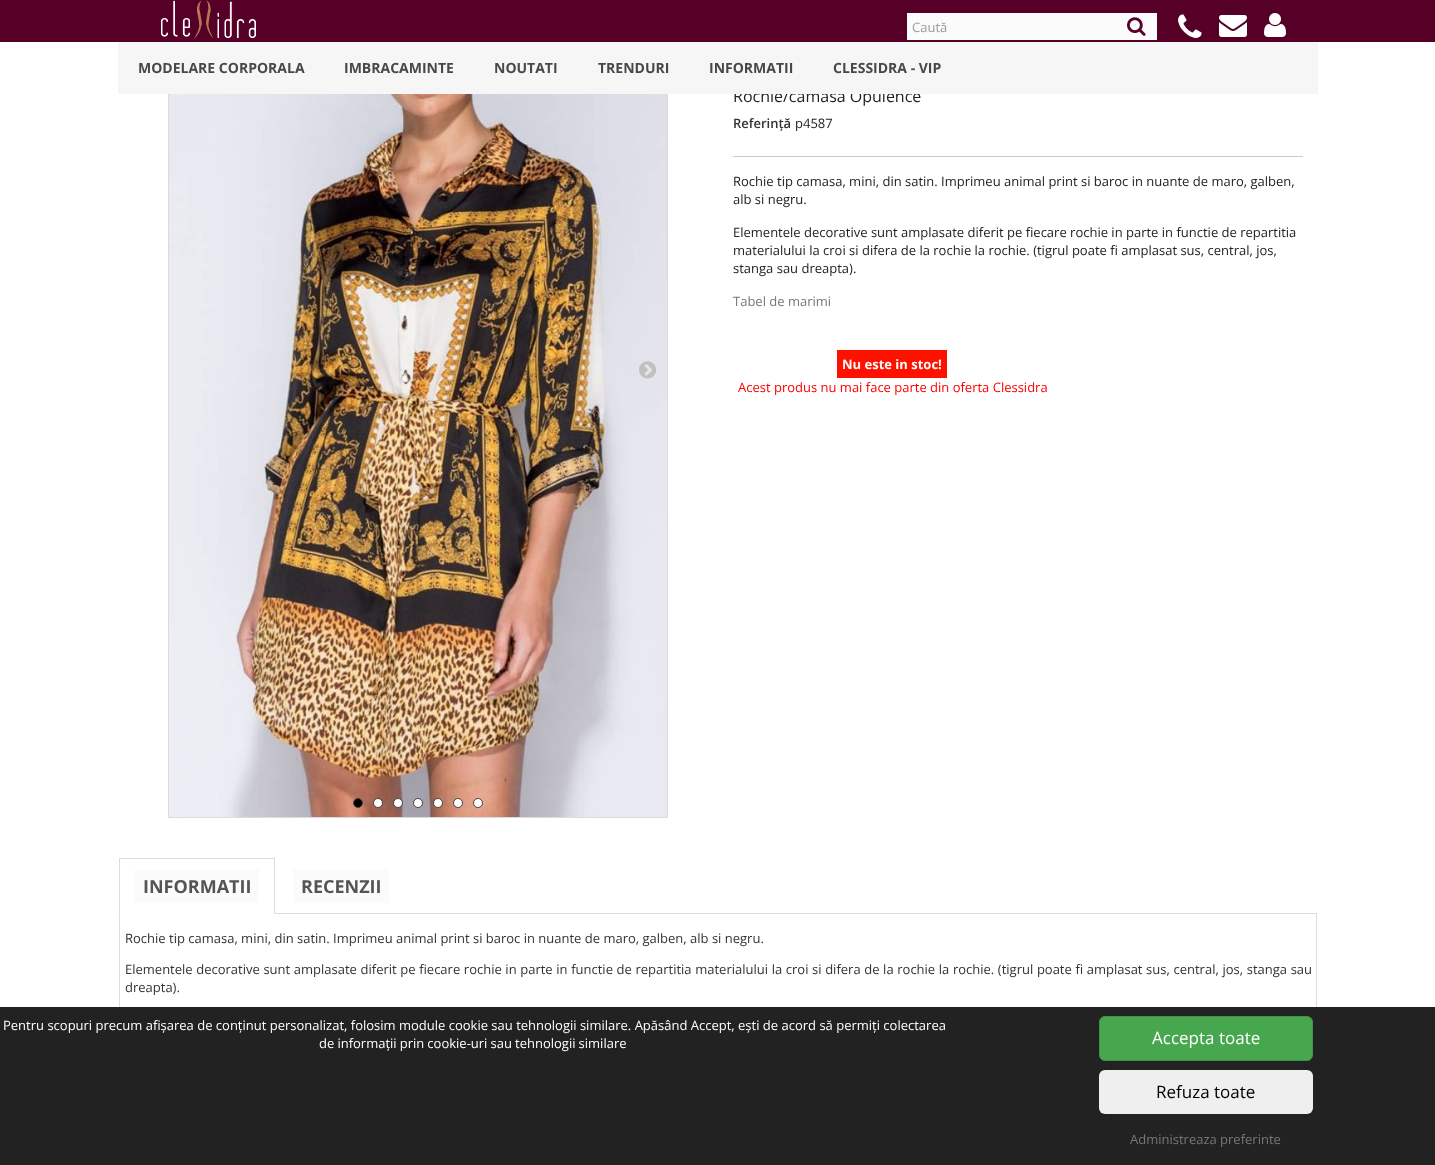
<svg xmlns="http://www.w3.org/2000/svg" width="1435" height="1165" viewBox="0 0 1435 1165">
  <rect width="100%" height="100%" fill="#ffffff"/>
  <rect x="0" y="0" width="1435" height="42" fill="#560027"/>
  <image x="161" y="0" width="95" height="39" href="img1.png"/>
  <rect x="907" y="13" width="250" height="27" fill="#fbfbfb"/>
  <text x="912" y="32" font-family="Open Sans" font-size="13" fill="#999999">Caută</text>
  <image x="1127" y="17" width="19" height="19" href="img2.png"/>
  <image x="1178" y="14" width="24" height="24" href="img3.png"/>
  <image x="1219" y="15" width="28" height="22" href="img4.png"/>
  <image x="1264" y="13" width="22" height="24" href="img5.png"/>
  <rect x="168.5" y="69.5" width="499" height="748" fill="none" stroke="#dbdbdb"/>
  <text x="733" y="102" font-family="Open Sans" font-size="16" fill="#222222">Rochie/camasa Opulence</text>
  <rect x="118" y="42" width="1200" height="52" fill="#f6f6f6"/>
  <text x="138" y="73" font-family="Open Sans" font-size="14" font-weight="bold" fill="#484848">MODELARE CORPORALA</text>
  <text x="344" y="73" font-family="Open Sans" font-size="14" font-weight="bold" fill="#484848">IMBRACAMINTE</text>
  <text x="494" y="73" font-family="Open Sans" font-size="14" font-weight="bold" fill="#484848">NOUTATI</text>
  <text x="598" y="73" font-family="Open Sans" font-size="14" font-weight="bold" fill="#484848">TRENDURI</text>
  <text x="709" y="73" font-family="Open Sans" font-size="14" font-weight="bold" fill="#484848">INFORMATII</text>
  <text x="833" y="73" font-family="Open Sans" font-size="14" font-weight="bold" fill="#484848">CLESSIDRA - VIP</text>
  <image x="169" y="94" width="498" height="723" href="img6.png"/>
  <image x="639" y="361" width="18" height="18" href="img7.png"/>
  <circle cx="358" cy="803" r="4.5" fill="#000000" stroke="#444444"/>
  <circle cx="378" cy="803" r="4.5" fill="#ffffff" stroke="#444444"/>
  <circle cx="398" cy="803" r="4.5" fill="#ffffff" stroke="#444444"/>
  <circle cx="418" cy="803" r="4.5" fill="#ffffff" stroke="#444444"/>
  <circle cx="438" cy="803" r="4.5" fill="#ffffff" stroke="#444444"/>
  <circle cx="458" cy="803" r="4.5" fill="#ffffff" stroke="#444444"/>
  <circle cx="478" cy="803" r="4.5" fill="#ffffff" stroke="#444444"/>
  <text x="733" y="128" font-family="Open Sans" font-size="13" font-weight="600" fill="#333333">Referință</text>
  <text x="795" y="128" font-family="Open Sans" font-size="13" fill="#222222">p4587</text>
  <rect x="733" y="156" width="570" height="1" fill="#cccccc"/>
  <text x="733" y="186" font-family="Open Sans" font-size="13" fill="#222222">Rochie tip camasa, mini, din satin. Imprimeu animal print si baroc in nuante de maro, galben,</text>
  <text x="733" y="204" font-family="Open Sans" font-size="13" fill="#222222">alb si negru.</text>
  <text x="733" y="237" font-family="Open Sans" font-size="13" fill="#222222">Elementele decorative sunt amplasate diferit pe fiecare rochie in parte in functie de repartitia</text>
  <text x="733" y="255" font-family="Open Sans" font-size="13" fill="#222222">materialului la croi si difera de la rochie la rochie. (tigrul poate fi amplasat sus, central, jos,</text>
  <text x="733" y="273" font-family="Open Sans" font-size="13" fill="#222222">stanga sau dreapta).</text>
  <text x="733" y="306" font-family="Open Sans" font-size="13" fill="#777777">Tabel de marimi</text>
  <rect x="837" y="350" width="110" height="28" fill="#ff1100"/>
  <text x="842" y="369" font-family="Open Sans" font-size="13" font-weight="bold" fill="#ffffff">Nu este in stoc!</text>
  <text x="738" y="392" font-family="Open Sans" font-size="13" fill="#ff0000">Acest produs nu mai face parte din oferta Clessidra</text>
  <rect x="275" y="913" width="1042" height="1" fill="#dddddd"/>
  <rect x="119" y="858" width="156" height="1" fill="#dddddd"/>
  <path d="M275 858V914L274 913V859Z" fill="#dddddd"/>
  <path d="M119 914V858L120 859V913Z" fill="#dddddd"/>
  <rect x="135" y="869" width="124" height="34" fill="#fbfbfb"/>
  <text x="143" y="893" font-family="Open Sans" font-size="18" font-weight="bold" fill="#555454">INFORMATII</text>
  <rect x="293" y="869" width="96" height="34" fill="#fbfbfb"/>
  <text x="301" y="893" font-family="Open Sans" font-size="18" font-weight="bold" fill="#555454">RECENZII</text>
  <rect x="1316" y="914" width="1" height="93" fill="#dddddd"/>
  <rect x="119" y="914" width="1" height="93" fill="#dddddd"/>
  <text x="125" y="943" font-family="Open Sans" font-size="13" fill="#333333">Rochie tip camasa, mini, din satin. Imprimeu animal print si baroc in nuante de maro, galben, alb si negru.</text>
  <text x="125" y="974" word-spacing="0.25" font-family="Open Sans" font-size="13" fill="#333333">Elementele decorative sunt amplasate diferit pe fiecare rochie in parte in functie de repartitia materialului la croi si difera de la rochie la rochie. (tigrul poate fi amplasat sus, central, jos, stanga sau</text>
  <text x="125" y="992" font-family="Open Sans" font-size="13" fill="#333333">dreapta).</text>
  <rect x="0" y="1007" width="1435" height="158" fill="#222222"/>
  <text x="3" y="1030" font-family="Open Sans" font-size="13" fill="#ffffff">Pentru scopuri precum afișarea de conținut personalizat, folosim module cookie sau tehnologii similare. Apăsând Accept, ești de acord să permiți colectarea</text>
  <text x="319" y="1048" word-spacing="-0.25" font-family="Open Sans" font-size="13" fill="#ffffff">de informații prin cookie-uri sau tehnologii similare</text>
  <rect x="1099.5" y="1016.5" width="213" height="44" rx="5.5" fill="#46a74e" stroke="#3e9546"/>
  <text x="1152" y="1044" font-family="Open Sans" font-size="17" fill="#ffffff">Accepta toate</text>
  <rect x="1099" y="1070" width="214" height="44" rx="6" fill="#efefef"/>
  <text x="1156" y="1098" font-family="Open Sans" font-size="17" fill="#000000">Refuza toate</text>
  <text x="1130" y="1144" font-family="Open Sans" font-size="13" fill="#777777">Administreaza preferinte</text>
</svg>
